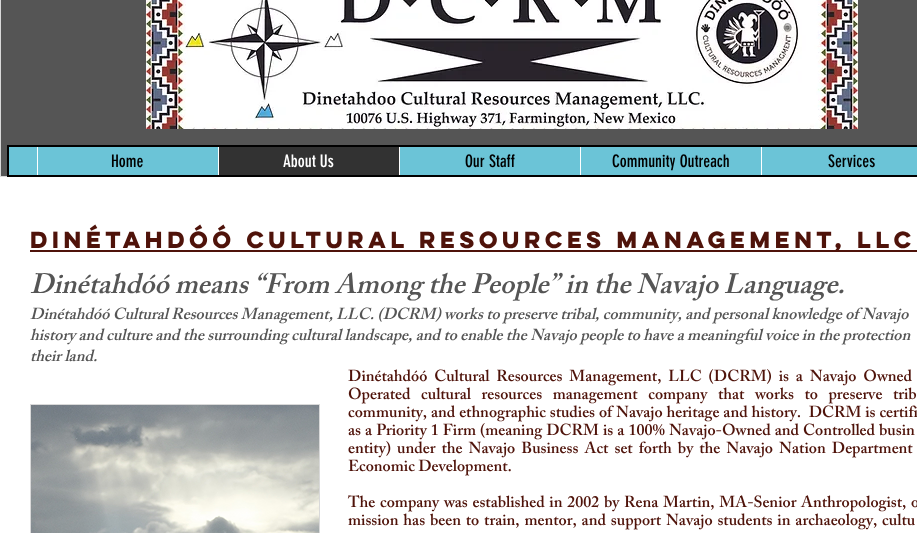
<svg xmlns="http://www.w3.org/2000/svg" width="917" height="533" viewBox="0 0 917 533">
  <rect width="100%" height="100%" fill="#ffffff"/>
  <rect x="0.5" y="-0.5" width="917" height="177" fill="#555555" stroke="#d9d9d9"/>
  <image x="146" y="0" width="712" height="129" href="img1.png"/>
  <rect x="8" y="146" width="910" height="30" fill="#6bc4d7" stroke="#000000" stroke-width="2"/>
  <rect x="37" y="147" width="1" height="28" fill="#ffffff"/>
  <text x="111" y="167" font-family="'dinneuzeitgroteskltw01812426'" font-size="17" fill="#000000">Home</text>
  <rect x="219" y="147" width="180" height="28" fill="#323232"/>
  <rect x="218" y="147" width="1" height="28" fill="#ffffff"/>
  <text x="283" y="167" font-family="'dinneuzeitgroteskltw01812426'" font-size="17" fill="#ffffff">About Us</text>
  <rect x="399" y="147" width="1" height="28" fill="#ffffff"/>
  <text x="465" y="167" font-family="'dinneuzeitgroteskltw01812426'" font-size="17" fill="#000000">Our Staff</text>
  <rect x="580" y="147" width="1" height="28" fill="#ffffff"/>
  <text x="612" y="167" font-family="'dinneuzeitgroteskltw01812426'" font-size="17" fill="#000000">Community Outreach</text>
  <rect x="761" y="147" width="1" height="28" fill="#ffffff"/>
  <text x="828" y="167" font-family="'dinneuzeitgroteskltw01812426'" font-size="17" fill="#000000">Services</text>
  <rect x="30" y="250" width="887" height="2" fill="#4f130a"/>
  <text x="30" y="248" font-family="'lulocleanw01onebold'" font-size="21" font-weight="bold" fill="#4f130a">Dinétahdóó Cultural Resources Management, LLC</text>
  <text x="30" y="293" font-family="'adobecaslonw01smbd'" font-size="28" font-weight="600" font-style="italic" fill="#555555">Dinétahdóó means “From Among the People” in the Navajo Language.</text>
  <text x="30" y="319" font-family="'adobecaslonw01smbd'" font-size="16" font-weight="600" font-style="italic" fill="#555555">Dinétahdóó Cultural Resources Management, LLC. (DCRM) works to preserve tribal, community, and personal knowledge of Navajo</text>
  <text x="30" y="340" font-family="'adobecaslonw01smbd'" font-size="16" font-weight="600" font-style="italic" fill="#555555">history and culture and the surrounding cultural landscape, and to enable the Navajo people to have a meaningful voice in the protection</text>
  <text x="30" y="361" font-family="'adobecaslonw01smbd'" font-size="16" font-weight="600" font-style="italic" fill="#555555">their land.</text>
  <rect x="30" y="404" width="290" height="129" fill="#d9d9d9"/>
  <image x="31" y="405" width="288" height="128" href="img2.png"/>
  <text x="348" y="381" word-spacing="3.5" font-family="'adobecaslonw01smbd'" font-size="16" font-weight="600" fill="#4f130a">Dinétahdóó Cultural Resources Management, LLC (DCRM) is a Navajo Owned</text>
  <text x="348" y="399" word-spacing="7.25" font-family="'adobecaslonw01smbd'" font-size="16" font-weight="600" fill="#4f130a">Operated cultural resources management company that works to preserve trib</text>
  <text x="348" y="417" word-spacing="0.5" font-family="'adobecaslonw01smbd'" font-size="16" font-weight="600" fill="#4f130a" xml:space="preserve">community, and ethnographic studies of Navajo heritage and history.  DCRM is certifi</text>
  <text x="348" y="435" word-spacing="0.7" font-family="'adobecaslonw01smbd'" font-size="16" font-weight="600" fill="#4f130a">as a Priority 1 Firm (meaning DCRM is a 100% Navajo-Owned and Controlled busin</text>
  <text x="348" y="453" word-spacing="2.75" font-family="'adobecaslonw01smbd'" font-size="16" font-weight="600" fill="#4f130a">entity) under the Navajo Business Act set forth by the Navajo Nation Department</text>
  <text x="348" y="471" font-family="'adobecaslonw01smbd'" font-size="16" font-weight="600" fill="#4f130a">Economic Development.</text>
  <text x="348" y="507" word-spacing="1.4" font-family="'adobecaslonw01smbd'" font-size="16" font-weight="600" fill="#4f130a">The company was established in 2002 by Rena Martin, MA-Senior Anthropologist, o</text>
  <text x="348" y="525" word-spacing="1.5" font-family="'adobecaslonw01smbd'" font-size="16" font-weight="600" fill="#4f130a">mission has been to train, mentor, and support Navajo students in archaeology, cultu</text>
</svg>
